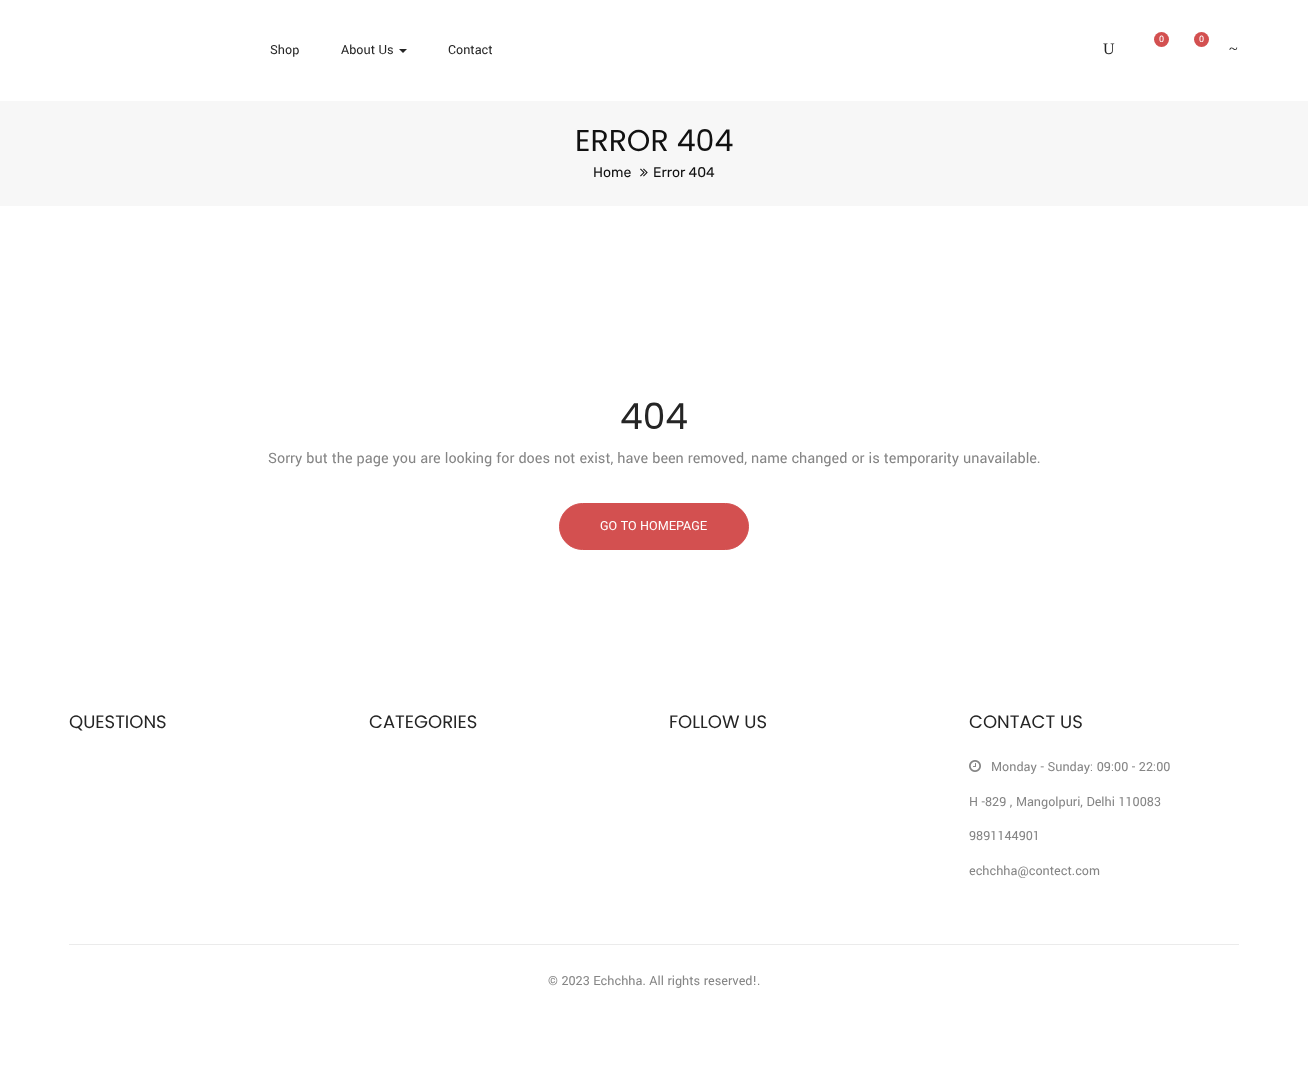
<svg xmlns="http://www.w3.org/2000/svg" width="1308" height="1076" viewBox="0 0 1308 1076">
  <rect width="100%" height="100%" fill="#ffffff"/>
  <text x="270" y="54" font-family="Yantramanav" font-size="14" fill="#252525">Shop</text>
  <text x="341" y="54" font-family="Yantramanav" font-size="14" fill="#252525">About Us</text>
  <path d="M399 49H407L403 53Z" fill="#252525"/>
  <text x="448" y="54" font-family="Yantramanav" font-size="14" fill="#252525">Contact</text>
  <circle cx="1161.5" cy="39.5" r="7.5" fill="#d35050"/>
  <text x="1159" y="42" font-family="Yantramanav" font-size="10" fill="#ffffff">0</text>
  <circle cx="1201.5" cy="39.5" r="7.5" fill="#d35050"/>
  <text x="1199" y="42" font-family="Yantramanav" font-size="10" fill="#ffffff">0</text>
  <text x="1103" y="54" font-family="Liberation Serif" font-size="16" fill="#252525">U</text>
  <text x="1229" y="54" font-family="Liberation Serif" font-size="16" fill="#252525">~</text>
  <rect x="0" y="101" width="1308" height="105" fill="#f7f7f7"/>
  <text x="575" y="151" font-family="Poppins" font-size="30" fill="#111111">ERROR 404</text>
  <text x="593" y="177" font-family="Rubik" font-size="14" fill="#111111">Home</text>
  <image x="640" y="168" width="8" height="9" href="img1.png"/>
  <text x="653" y="177" font-family="Rubik" font-size="14" fill="#111111">Error 404</text>
  <text x="620" y="429" font-family="Poppins" font-size="36" fill="#252525">404</text>
  <text x="268" y="463" font-family="Yantramanav" font-size="16" fill="#858585">Sorry but the page you are looking for does not exist, have been removed, name changed or is temporarity unavailable.</text>
  <rect x="559.5" y="503.5" width="189" height="46" rx="23" fill="#d35050" stroke="#d35050"/>
  <text x="600" y="530" font-family="Yantramanav" font-size="14" fill="#ffffff">GO TO HOMEPAGE</text>
  <text x="69" y="728" font-family="Poppins" font-size="18" fill="#252525">QUESTIONS</text>
  <text x="369" y="728" font-family="Poppins" font-size="18" fill="#252525">CATEGORIES</text>
  <text x="669" y="728" font-family="Poppins" font-size="18" fill="#252525">FOLLOW US</text>
  <text x="969" y="728" font-family="Poppins" font-size="18" fill="#252525">CONTACT US</text>
  <image x="969" y="760" width="12" height="12" href="img2.png"/>
  <text x="991" y="771" font-family="Yantramanav" font-size="14" fill="#858585">Monday - Sunday: 09:00 - 22:00</text>
  <text x="969" y="806" font-family="Yantramanav" font-size="14" fill="#858585">H -829 , Mangolpuri, Delhi 110083</text>
  <text x="969" y="840" font-family="Yantramanav" font-size="14" fill="#858585">9891144901</text>
  <text x="969" y="875" font-family="Yantramanav" font-size="14" fill="#858585">echchha@contect.com</text>
  <rect x="69" y="944" width="1170" height="1" fill="#ebebeb"/>
  <text x="548" y="985" font-family="Yantramanav" font-size="14" fill="#858585">© 2023 Echchha. All rights reserved!.</text>
</svg>
